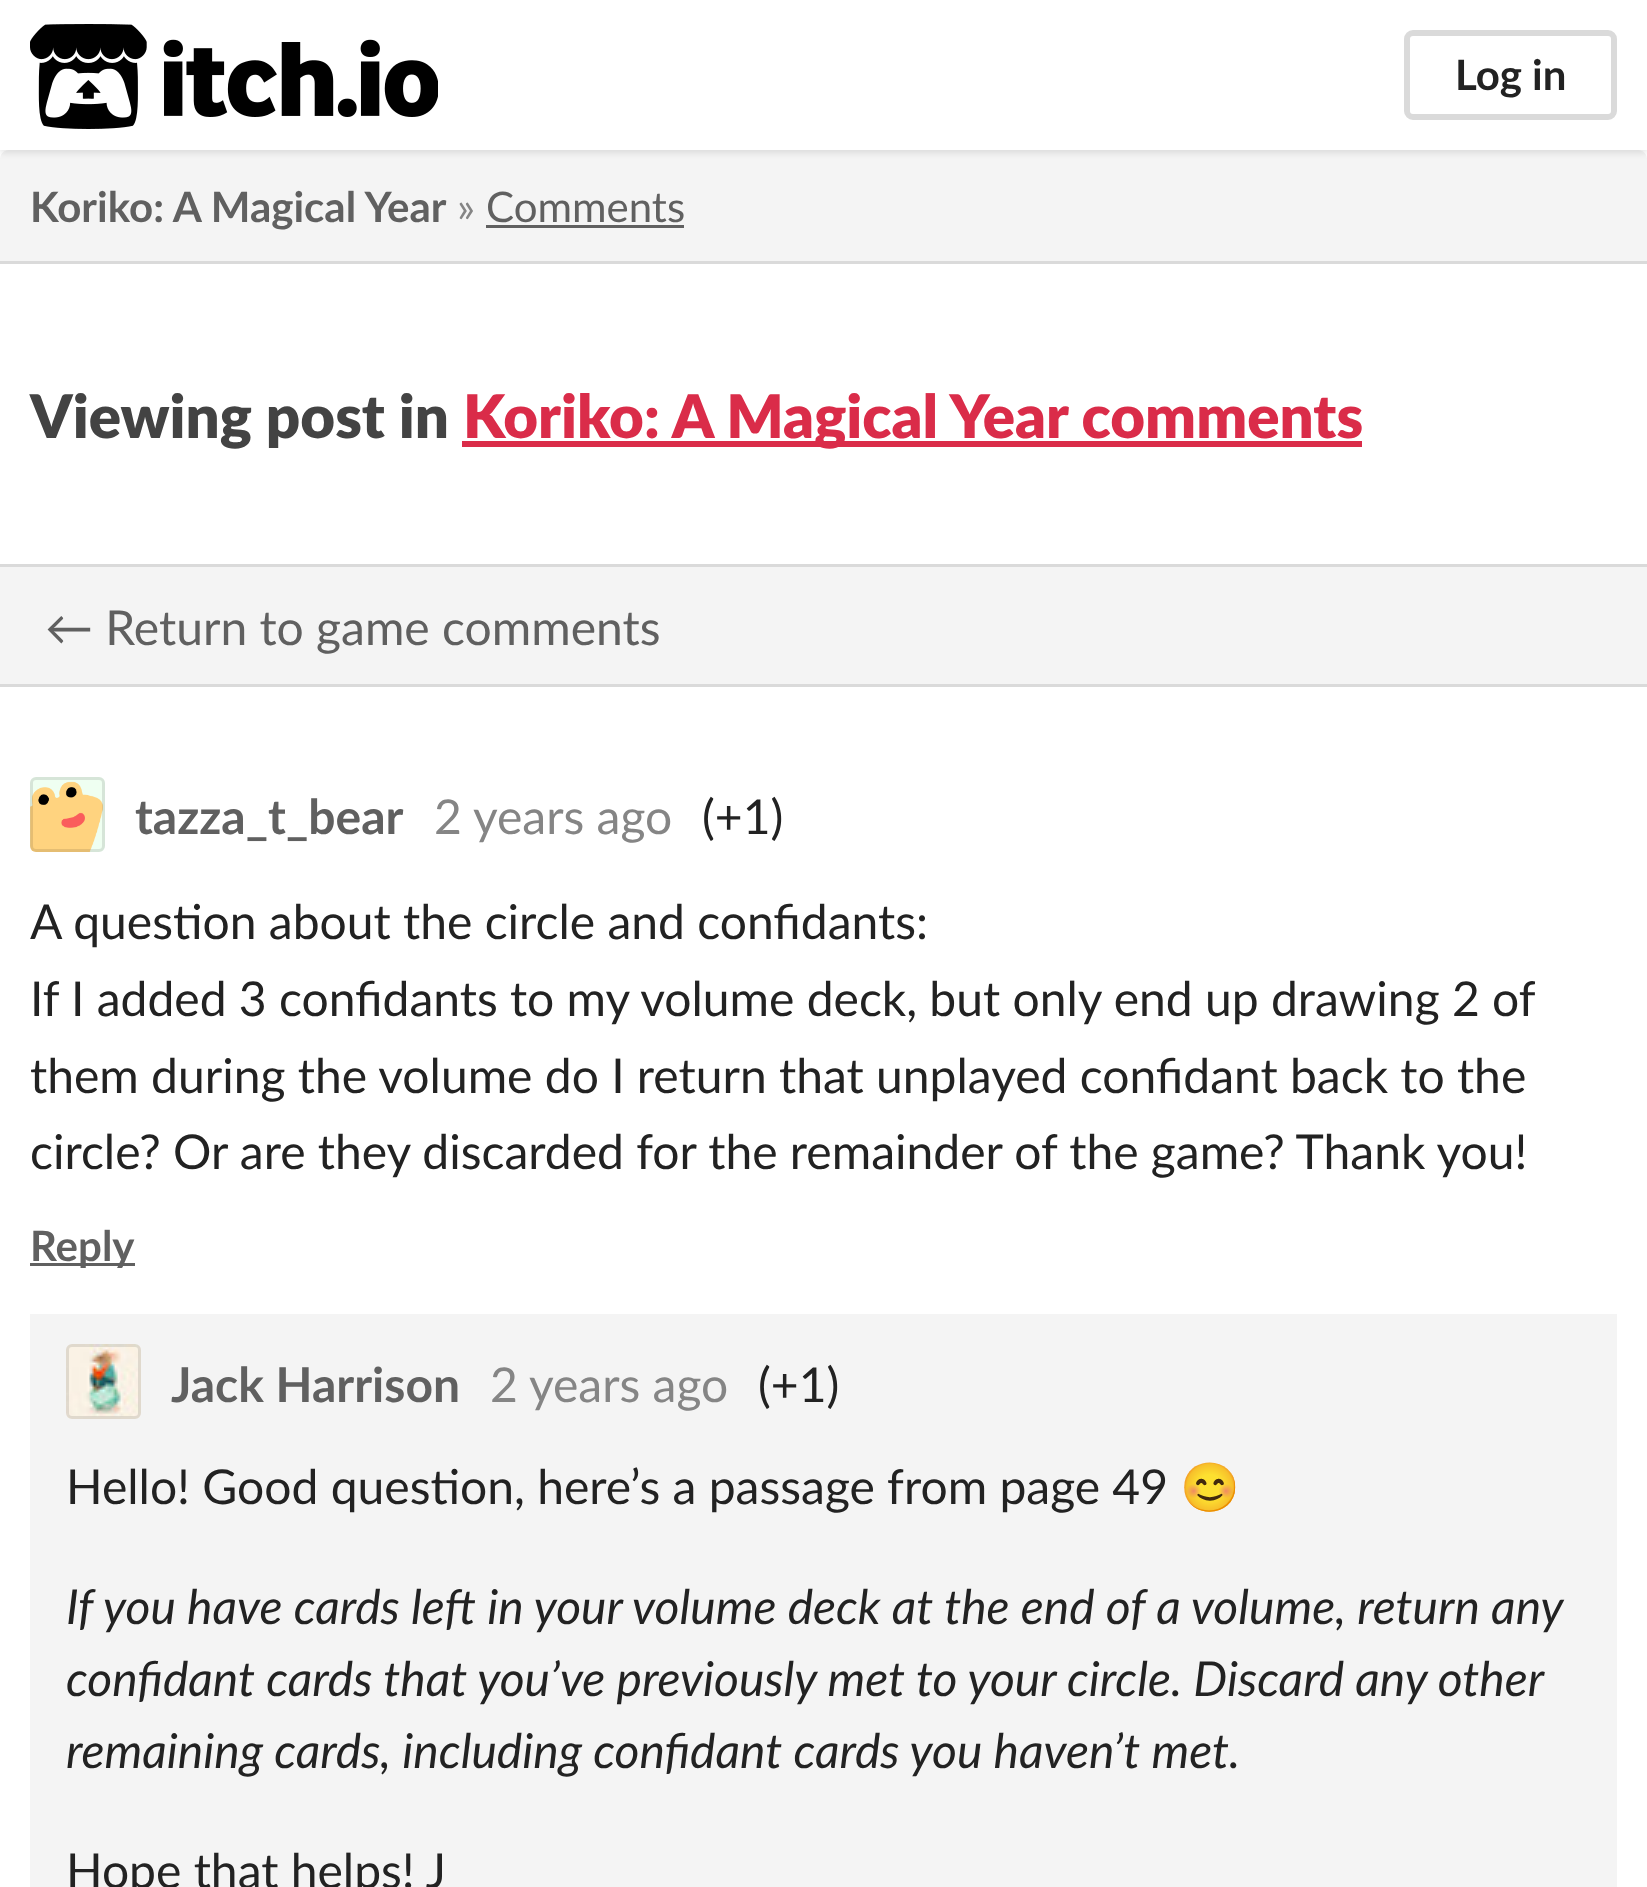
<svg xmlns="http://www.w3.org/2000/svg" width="1647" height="1887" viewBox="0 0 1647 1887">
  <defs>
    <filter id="blur1" x="-50%" y="-200%" width="200%" height="500%"><feGaussianBlur stdDeviation="3"/></filter>
  </defs>
  <rect width="100%" height="100%" fill="#ffffff"/>
  <path d="M9 150H1638C1643 150 1647 154 1647 159V264H0V159C0 154 4 150 9 150Z" fill="#f4f4f4"/>
  <rect x="0" y="3" width="1647" height="150" fill="#000000" fill-opacity="0.1" filter="url(#blur1)"/>
  <rect x="0" y="0" width="1647" height="150" fill="#ffffff"/>
  <image x="30" y="24" width="408" height="105" href="img1.png"/>
  <rect x="1407" y="33" width="207" height="84" rx="6" fill="none" stroke="#dadada" stroke-width="6"/>
  <text x="1455" y="90" font-family="Lato" font-size="42" font-weight="bold" fill="#222222">Log in</text>
  <rect x="0" y="261" width="1647" height="3" fill="#dadada"/>
  <text x="30" y="222" font-family="Lato" font-size="42" font-weight="bold" fill="#606060">Koriko: A Magical Year</text>
  <text x="457" y="222" font-family="Lato" font-size="42" fill="#858585">»</text>
  <text x="486" y="222" font-family="Lato" font-size="42" fill="#606060">Comments</text>
  <rect x="486" y="225" width="198" height="3" fill="#606060"/>
  <rect x="0" y="564" width="1647" height="3" fill="#dadada"/>
  <text x="30" y="438" font-family="Lato" font-size="60" font-weight="900" fill="#434343">Viewing post in</text>
  <rect x="462" y="441" width="900" height="6" fill="#da2c49"/>
  <text x="463" y="438" font-family="Lato" font-size="60" font-weight="900" fill="#da2c49">Koriko: A Magical Year comments</text>
  <rect x="0" y="567" width="1647" height="117" fill="#f4f4f4"/>
  <rect x="0" y="684" width="1647" height="3" fill="#dadada"/>
  <text x="45" y="645" font-family="Lato" font-size="48" fill="#606060">← Return to game comments</text>
  <image x="30" y="777" width="75" height="75" href="img2.png"/>
  <rect x="31.5" y="778.5" width="72" height="72" rx="4.5" fill="none" stroke="#000000" stroke-opacity="0.1" stroke-width="3"/>
  <text x="135" y="834" font-family="Lato" font-size="48" font-weight="bold" fill="#606060">tazza_t_bear</text>
  <text x="434" y="834" font-family="Lato" font-size="48" fill="#858585">2 years ago</text>
  <text x="702" y="834" font-family="Lato" font-size="48" fill="#222222">(+1)</text>
  <text x="30" y="939" font-family="Lato" font-size="48" fill="#222222">A question about the circle and confidants:</text>
  <text x="30" y="1016" font-family="Lato" font-size="48" fill="#222222">If I added 3 confidants to my volume deck, but only end up drawing 2 of</text>
  <text x="30" y="1093" font-family="Lato" font-size="48" fill="#222222">them during the volume do I return that unplayed confidant back to the</text>
  <text x="30" y="1169" font-family="Lato" font-size="48" fill="#222222">circle? Or are they discarded for the remainder of the game? Thank you!</text>
  <rect x="30" y="1263" width="105" height="3" fill="#606060"/>
  <text x="30" y="1261" font-family="Lato" font-size="42" font-weight="bold" fill="#606060">Reply</text>
  <rect x="30" y="1314" width="1587" height="573" fill="#f4f4f4"/>
  <image x="66" y="1344" width="75" height="75" href="img3.png"/>
  <rect x="67.5" y="1345.5" width="72" height="72" rx="4.5" fill="none" stroke="#000000" stroke-opacity="0.1" stroke-width="3"/>
  <text x="171" y="1402" font-family="Lato" font-size="48" font-weight="bold" fill="#606060">Jack Harrison</text>
  <text x="490" y="1402" font-family="Lato" font-size="48" fill="#858585">2 years ago</text>
  <text x="758" y="1402" font-family="Lato" font-size="48" fill="#222222">(+1)</text>
  <text x="66" y="1504" font-family="Lato" font-size="48" fill="#222222">Hello! Good question, here’s a passage from page 49</text>
  <text x="1180" y="1504" font-family="Noto Color Emoji" font-size="48" fill="#222222">😊</text>
  <text x="66" y="1624" font-family="Lato" font-size="48" font-style="italic" fill="#222222">If you have cards left in your volume deck at the end of a volume, return any</text>
  <text x="66" y="1696" font-family="Lato" font-size="48" font-style="italic" fill="#222222">confidant cards that you’ve previously met to your circle. Discard any other</text>
  <text x="66" y="1768" font-family="Lato" font-size="48" font-style="italic" fill="#222222">remaining cards, including confidant cards you haven’t met.</text>
  <text x="66" y="1888" font-family="Lato" font-size="48" fill="#222222">Hope that helps! J</text>
</svg>
